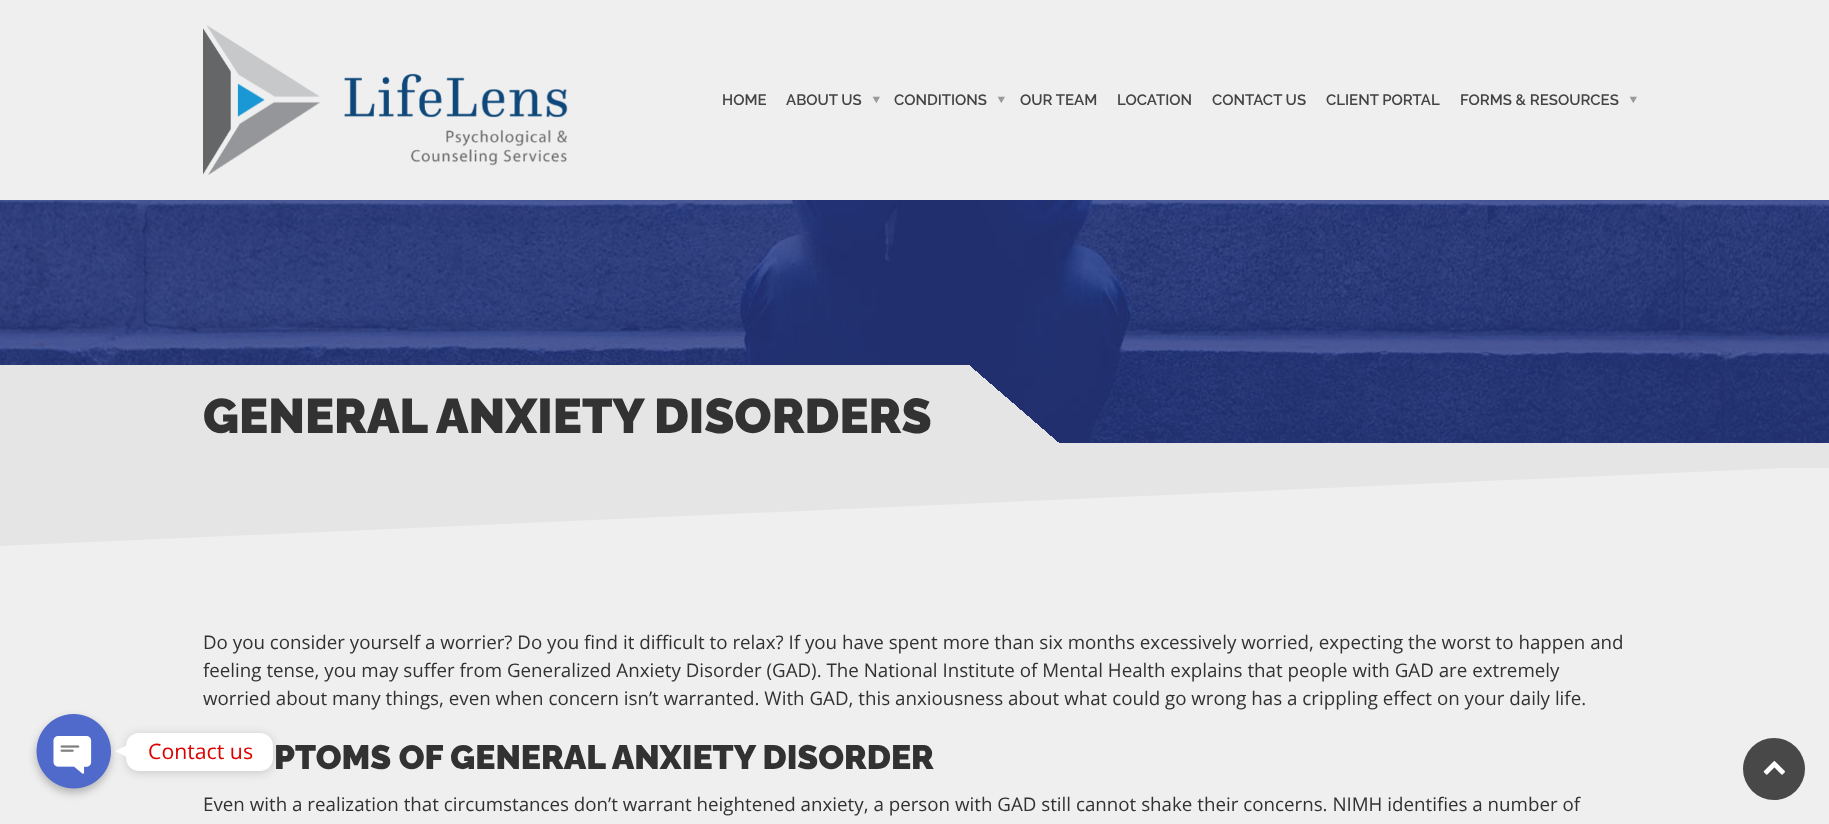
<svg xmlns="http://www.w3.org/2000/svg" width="1829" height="824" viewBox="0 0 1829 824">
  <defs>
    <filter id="blur1" x="-50%" y="-200%" width="200%" height="500%"><feGaussianBlur stdDeviation="4"/></filter>
    <filter id="blur2" x="-50%" y="-200%" width="200%" height="500%"><feGaussianBlur stdDeviation="5"/></filter>
  </defs>
  <rect width="100%" height="100%" fill="#efefef"/>
  <rect x="36" y="718" width="75" height="75" rx="37.5" fill="#000000" fill-opacity="0.25" filter="url(#blur1)"/>
  <image x="36" y="714" width="75" height="75" href="img1.png"/>
  <rect x="126" y="734" width="147" height="39" rx="13" fill="#000000" fill-opacity="0.15" filter="url(#blur2)"/>
  <rect x="126" y="733" width="147" height="38" rx="13" fill="#ffffff"/>
  <text x="148" y="759" font-family="Open Sans" font-size="21.25" fill="#dd0000">Contact us</text>
  <path d="M127.5 745V757.5L115 751Z" fill="#ffffff"/>
  <image x="203" y="25" width="365" height="150" href="img2.png"/>
  <text x="722" y="105" font-family="Raleway" font-size="15" font-weight="600" fill="#444444">HOME</text>
  <text x="786" y="105" font-family="Raleway" font-size="15" font-weight="600" fill="#444444">ABOUT US</text>
  <text x="867" y="95" transform="rotate(90 867 95)" font-family="Noto Sans" font-size="25" fill="#9a9a9a">‣</text>
  <text x="894" y="105" font-family="Raleway" font-size="15" font-weight="600" fill="#444444">CONDITIONS</text>
  <text x="992" y="95" transform="rotate(90 992 95)" font-family="Noto Sans" font-size="25" fill="#9a9a9a">‣</text>
  <text x="1020" y="105" font-family="Raleway" font-size="15" font-weight="600" fill="#444444">OUR TEAM</text>
  <text x="1117" y="105" font-family="Raleway" font-size="15" font-weight="600" fill="#444444">LOCATION</text>
  <text x="1212" y="105" font-family="Raleway" font-size="15" font-weight="600" fill="#444444">CONTACT US</text>
  <text x="1326" y="105" font-family="Raleway" font-size="15" font-weight="600" fill="#444444">CLIENT PORTAL</text>
  <text x="1460" y="105" font-family="Raleway" font-size="15" font-weight="600" fill="#444444">FORMS &amp; RESOURCES</text>
  <text x="1624" y="95" transform="rotate(90 1624 95)" font-family="Noto Sans" font-size="25" fill="#9a9a9a">‣</text>
  <image x="0" y="200" width="1829" height="243" href="img3.png"/>
  <rect x="275" y="365" width="694" height="78" fill="#e5e5e5"/>
  <text x="203" y="433" font-family="Raleway" font-size="48.75" font-weight="900" fill="#323232">GENERAL ANXIETY DISORDERS</text>
  <rect x="0" y="443" width="1829" height="25" fill="#e5e5e5"/>
  <path d="M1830 466H0V546Z" fill="#e5e5e5"/>
  <text x="203" y="649" font-family="Open Sans" font-size="18.75" fill="#323232">Do you consider yourself a worrier? Do you find it difficult to relax? If you have spent more than six months excessively worried, expecting the worst to happen and</text>
  <text x="203" y="677" font-family="Open Sans" font-size="18.75" fill="#323232">feeling tense, you may suffer from Generalized Anxiety Disorder (GAD). The National Institute of Mental Health explains that people with GAD are extremely</text>
  <text x="203" y="705" font-family="Open Sans" font-size="18.75" fill="#323232">worried about many things, even when concern isn’t warranted. With GAD, this anxiousness about what could go wrong has a crippling effect on your daily life.</text>
  <text x="274" y="769" font-family="Raleway" font-size="33.75" font-weight="900" fill="#323232">PTOMS OF GENERAL ANXIETY DISORDER</text>
  <text x="203" y="811" font-family="Open Sans" font-size="18.75" fill="#323232">Even with a realization that circumstances don’t warrant heightened anxiety, a person with GAD still cannot shake their concerns. NIMH identifies a number of</text>
  <circle cx="1774" cy="769" r="31" fill="#484848"/>
  <image x="1763" y="761" width="22" height="14" href="img4.png"/>
</svg>
